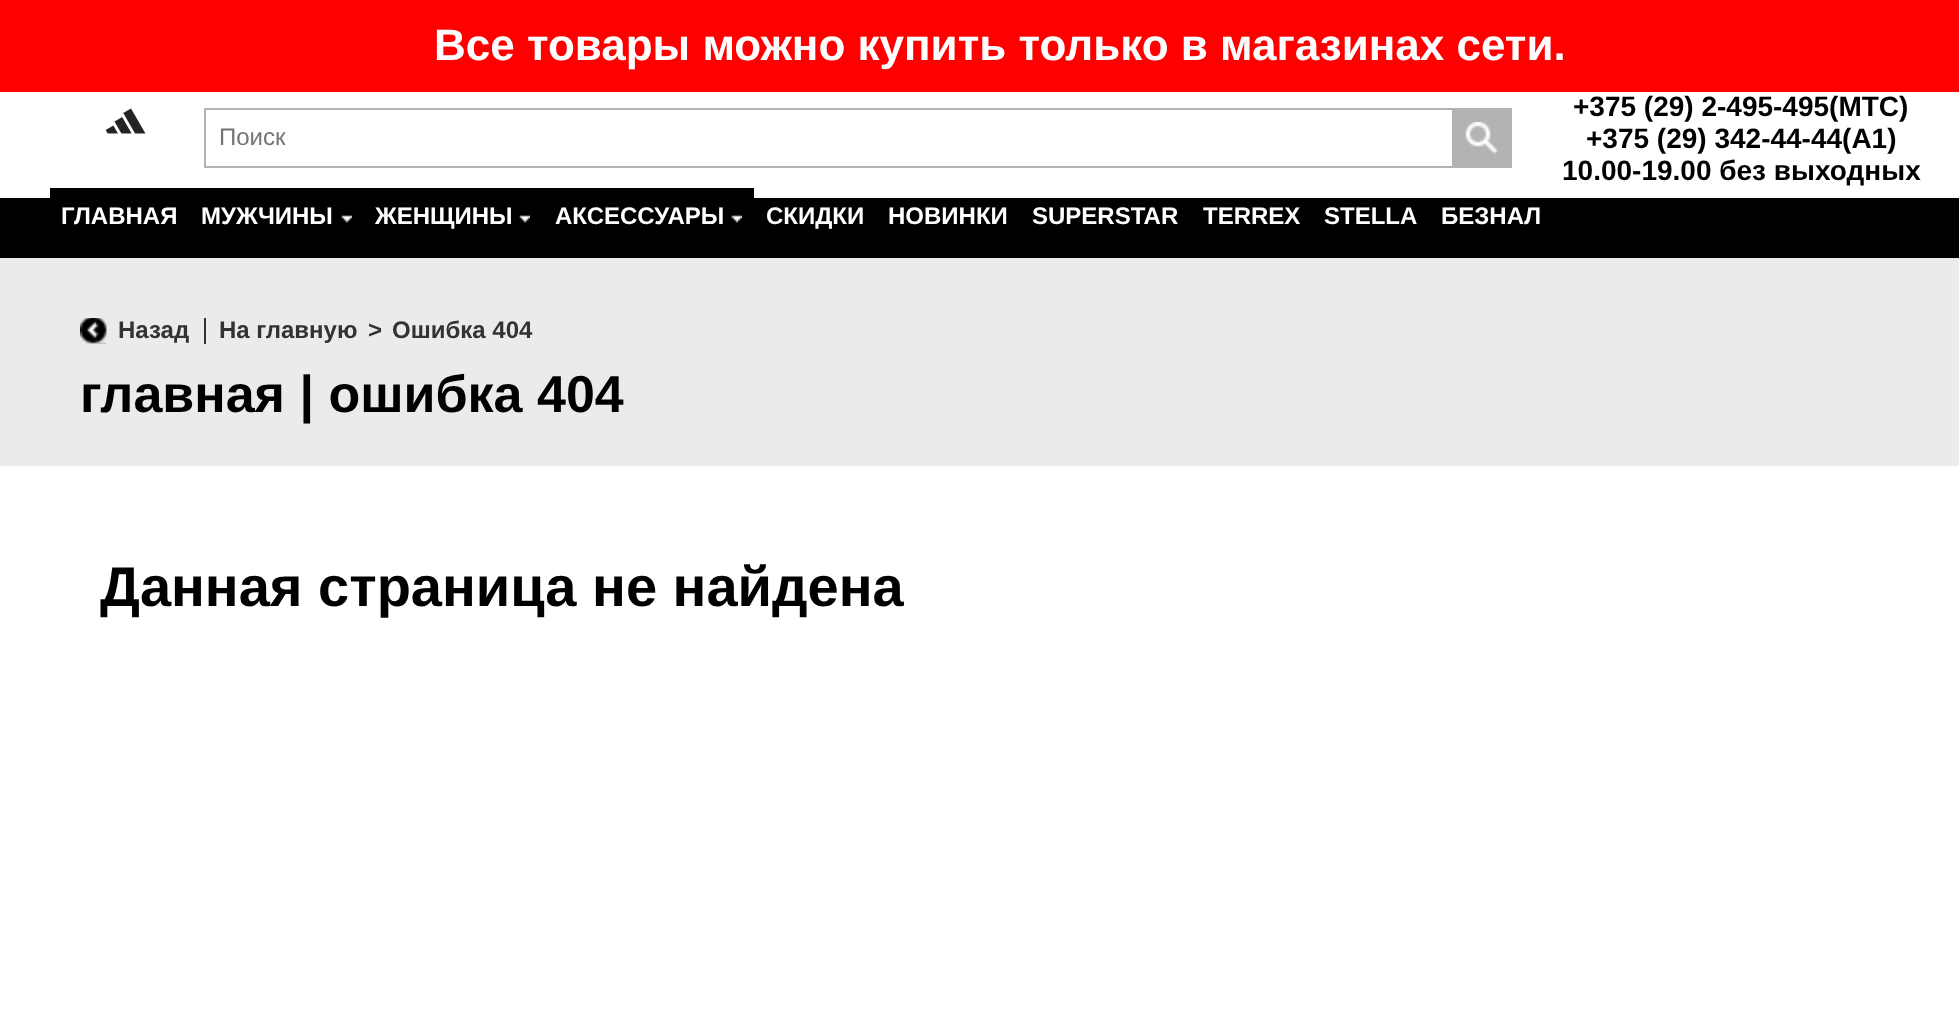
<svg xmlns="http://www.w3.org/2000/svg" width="1959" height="1036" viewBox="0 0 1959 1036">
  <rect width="100%" height="100%" fill="#ebebeb"/>
  <rect x="0" y="92" width="1959" height="106" fill="#ffffff"/>
  <rect x="0" y="198" width="1959" height="60" fill="#000000"/>
  <rect x="0" y="0" width="1959" height="92" fill="#ff0000"/>
  <text x="434" y="60" font-family="Liberation Sans" font-size="44" font-weight="bold" fill="#ffffff">Все товары можно купить только в магазинах сети.</text>
  <image x="105" y="108" width="41" height="26" href="img1.png"/>
  <text x="1573" y="116" font-family="Liberation Sans" font-size="28" font-weight="bold" fill="#000000">+375 (29) 2-495-495(MTC)</text>
  <text x="1586" y="148" font-family="Liberation Sans" font-size="28" font-weight="bold" fill="#000000">+375 (29) 342-44-44(A1)</text>
  <text x="1562" y="180" font-family="Liberation Sans" font-size="28" font-weight="bold" fill="#000000">10.00-19.00 без выходных</text>
  <rect x="204" y="108" width="1248" height="2" fill="#b3b3b3"/>
  <rect x="204" y="166" width="1248" height="2" fill="#b3b3b3"/>
  <rect x="204" y="108" width="2" height="60" fill="#b3b3b3"/>
  <text x="219" y="145" font-family="Liberation Sans" font-size="24" fill="#757575">Поиск</text>
  <rect x="1452" y="108" width="60" height="60" fill="#b3b3b3"/>
  <image x="1465" y="122" width="34" height="33" href="img2.png"/>
  <rect x="50" y="188" width="704" height="10" fill="#000000"/>
  <text x="61" y="224" font-family="Liberation Sans" font-size="24" font-weight="bold" fill="#ffffff">ГЛАВНАЯ</text>
  <image x="341" y="215" width="11" height="8" href="img3.png"/>
  <text x="201" y="224" font-family="Liberation Sans" font-size="24" font-weight="bold" fill="#ffffff">МУЖЧИНЫ</text>
  <image x="519" y="215" width="11" height="8" href="img4.png"/>
  <text x="375" y="224" font-family="Liberation Sans" font-size="24" font-weight="bold" fill="#ffffff">ЖЕНЩИНЫ</text>
  <image x="731" y="215" width="11" height="8" href="img3.png"/>
  <text x="555" y="224" font-family="Liberation Sans" font-size="24" font-weight="bold" fill="#ffffff">АКСЕССУАРЫ</text>
  <text x="766" y="224" font-family="Liberation Sans" font-size="24" font-weight="bold" fill="#ffffff">СКИДКИ</text>
  <text x="888" y="224" font-family="Liberation Sans" font-size="24" font-weight="bold" fill="#ffffff">НОВИНКИ</text>
  <text x="1032" y="224" font-family="Liberation Sans" font-size="24" font-weight="bold" fill="#ffffff">SUPERSTAR</text>
  <text x="1203" y="224" font-family="Liberation Sans" font-size="24" font-weight="bold" fill="#ffffff">TERREX</text>
  <text x="1324" y="224" font-family="Liberation Sans" font-size="24" font-weight="bold" fill="#ffffff">STELLA</text>
  <text x="1441" y="224" font-family="Liberation Sans" font-size="24" font-weight="bold" fill="#ffffff">БЕЗНАЛ</text>
  <rect x="204" y="318" width="2" height="26" fill="#333333"/>
  <image x="80" y="318" width="27" height="26" href="img5.png"/>
  <text x="118" y="338" font-family="Liberation Sans" font-size="24" font-weight="bold" fill="#333333">Назад</text>
  <text x="219" y="338" font-family="Liberation Sans" font-size="24" font-weight="bold" fill="#333333">На главную</text>
  <text x="368" y="338" font-family="Liberation Sans" font-size="24" font-weight="bold" fill="#333333">&gt;</text>
  <text x="392" y="338" font-family="Liberation Sans" font-size="24" font-weight="bold" fill="#333333">Ошибка 404</text>
  <text x="80" y="412" font-family="Liberation Sans" font-size="52" font-weight="bold" fill="#000000">главная | ошибка 404</text>
  <rect x="0" y="466" width="1959" height="570" fill="#ffffff"/>
  <text x="100" y="606" font-family="Liberation Sans" font-size="56" font-weight="bold" fill="#000000">Данная страница не найдена</text>
</svg>
